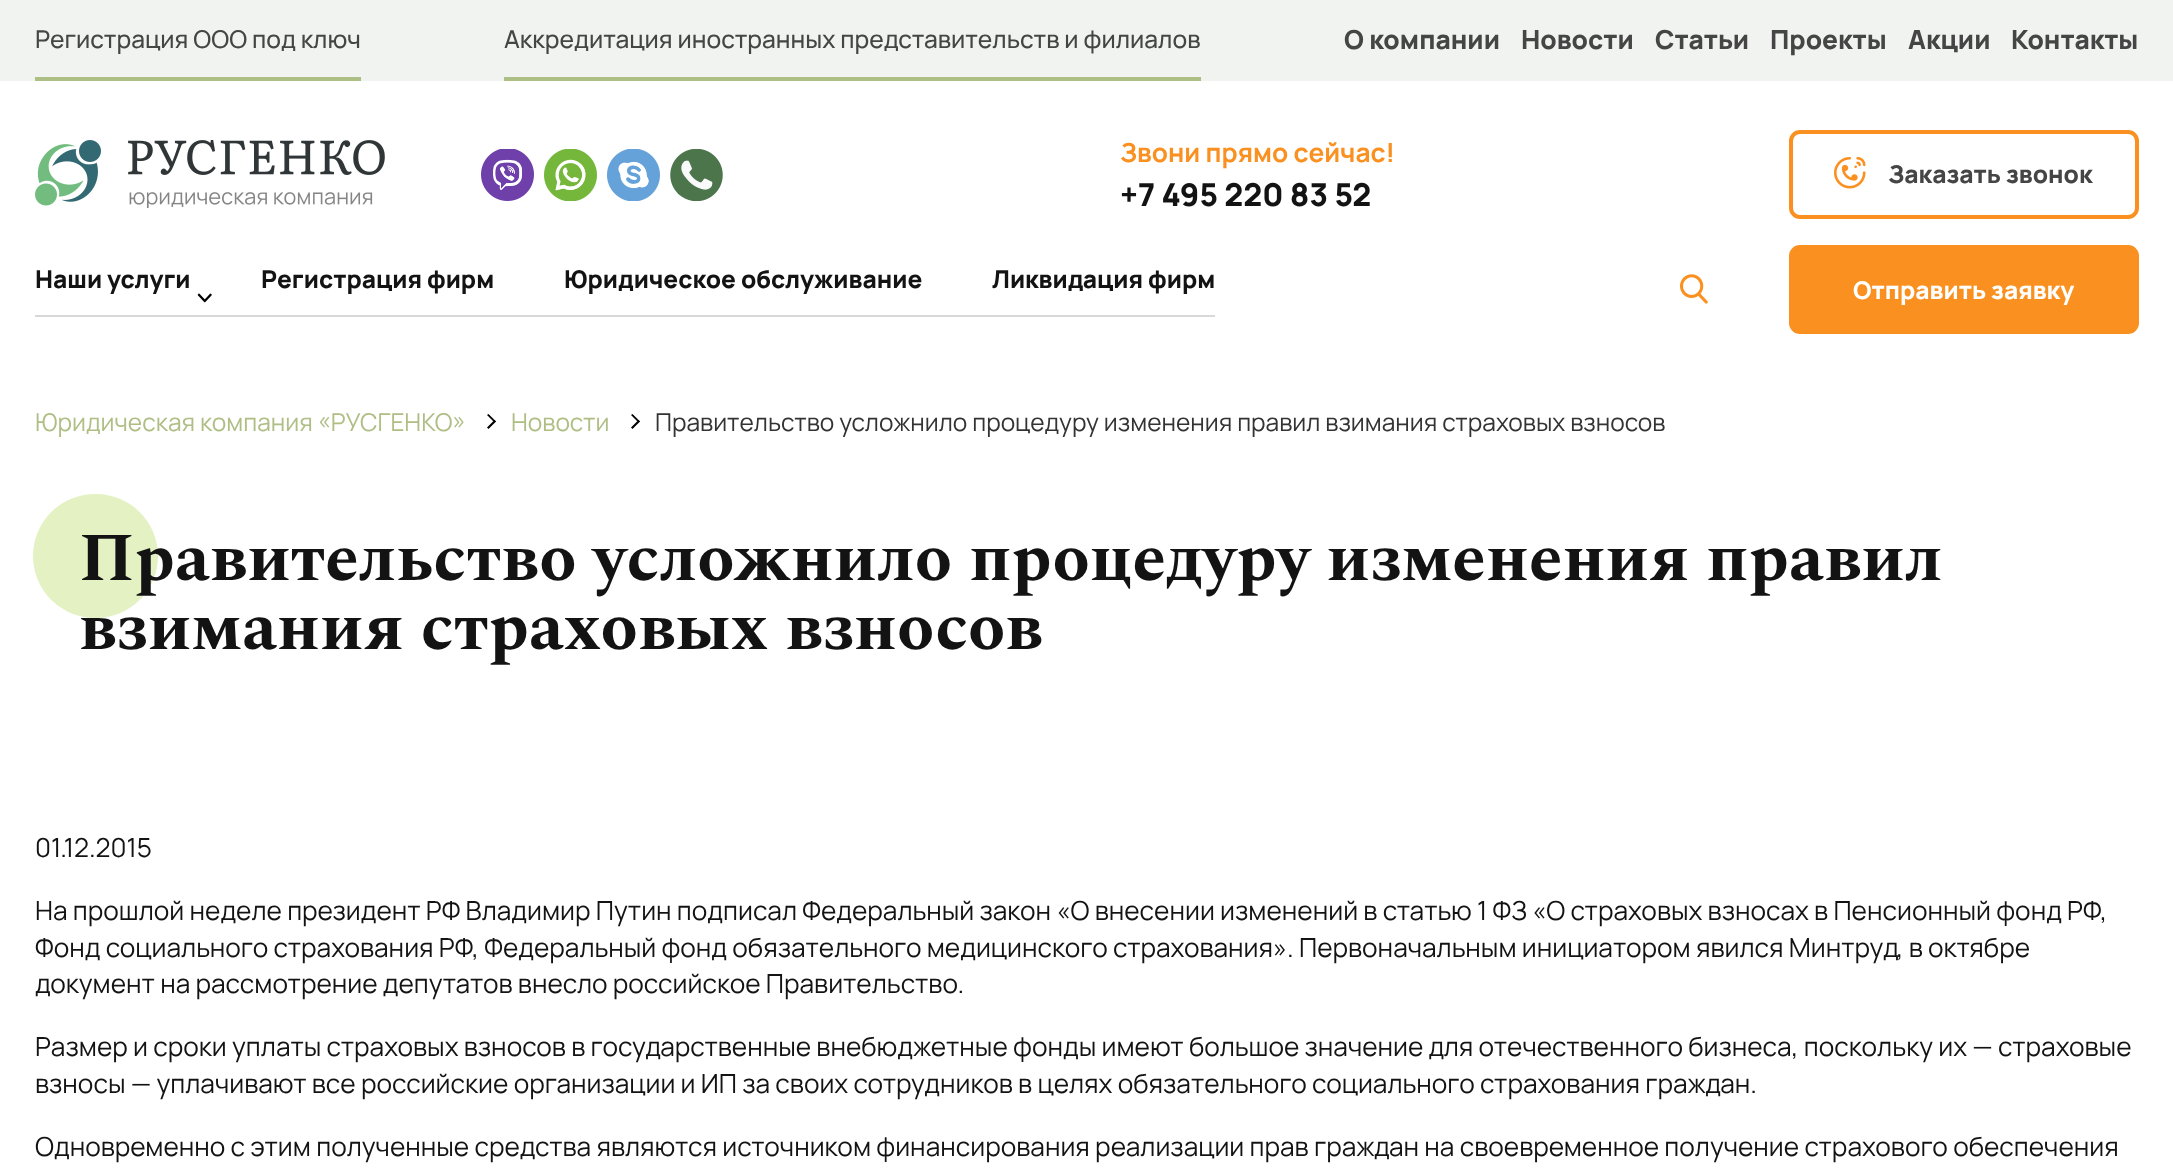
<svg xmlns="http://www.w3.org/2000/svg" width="2173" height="1175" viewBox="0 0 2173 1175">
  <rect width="100%" height="100%" fill="#ffffff"/>
  <rect x="0" y="0" width="2173" height="81" fill="#f1f3f1"/>
  <text x="35" y="48" font-family="Manrope" font-size="24.5" font-weight="500" fill="#454545">Регистрация ООО под ключ</text>
  <rect x="35" y="77" width="326" height="4" fill="#aebf85"/>
  <text x="504" y="48" font-family="Manrope" font-size="24.5" font-weight="500" fill="#454545">Аккредитация иностранных представительств и филиалов</text>
  <rect x="504" y="77" width="697" height="4" fill="#aebf85"/>
  <text x="1344" y="49" font-family="Manrope" font-size="26.25" font-weight="800" fill="#454545">О компании</text>
  <text x="1521" y="49" font-family="Manrope" font-size="26.25" font-weight="800" fill="#454545">Новости</text>
  <text x="1655" y="49" font-family="Manrope" font-size="26.25" font-weight="800" fill="#454545">Статьи</text>
  <text x="1770" y="49" font-family="Manrope" font-size="26.25" font-weight="800" fill="#454545">Проекты</text>
  <text x="1908" y="49" font-family="Manrope" font-size="26.25" font-weight="800" fill="#454545">Акции</text>
  <text x="2011" y="49" font-family="Manrope" font-size="26.25" font-weight="800" fill="#454545">Контакты</text>
  <image x="35" y="140" width="350" height="68" href="img1.png"/>
  <image x="481" y="149" width="53" height="52" href="img2.png"/>
  <image x="544" y="149" width="53" height="52" href="img3.png"/>
  <image x="607" y="149" width="53" height="52" href="img4.png"/>
  <image x="670" y="149" width="53" height="52" href="img5.png"/>
  <text x="1120" y="162" font-family="Manrope" font-size="26.25" font-weight="bold" fill="#fa901f">Звони прямо сейчас!</text>
  <text x="1120" y="206" font-family="Manrope" font-size="31.5" font-weight="800" fill="#131313">+7 495 220 83 52</text>
  <rect x="1791" y="132" width="346" height="85" rx="9" fill="none" stroke="#fa901f" stroke-width="4"/>
  <image x="1834" y="157" width="32" height="32" href="img6.png"/>
  <text x="1888" y="183" font-family="Manrope" font-size="24.5" font-weight="800" fill="#454545">Заказать звонок</text>
  <text x="35" y="288" font-family="Manrope" font-size="24.5" font-weight="800" fill="#131313">Наши услуги</text>
  <image x="197" y="293" width="15" height="10" href="img7.png"/>
  <text x="261" y="288" font-family="Manrope" font-size="24.5" font-weight="800" fill="#131313">Регистрация фирм</text>
  <text x="564" y="288" font-family="Manrope" font-size="24.5" font-weight="800" fill="#131313">Юридическое обслуживание</text>
  <text x="992" y="288" font-family="Manrope" font-size="24.5" font-weight="800" fill="#131313">Ликвидация фирм</text>
  <rect x="35" y="315" width="1180" height="2" fill="#d6d9d6"/>
  <image x="1680" y="274" width="28" height="30" href="img8.png"/>
  <rect x="1791" y="247" width="346" height="85" rx="9" fill="#fa901f" stroke="#fa901f" stroke-width="4"/>
  <text x="1853" y="299" font-family="Manrope" font-size="24.5" font-weight="800" fill="#ffffff">Отправить заявку</text>
  <text x="35" y="431" font-family="Manrope" font-size="24.5" fill="#aebe84">Юридическая компания «РУСГЕНКО»</text>
  <path d="M488.5 414L496 421.5L494.5 422.5L487 415Z" fill="#000000"/>
  <path d="M494.5 420L496 421.5L488.5 429L487 427.5Z" fill="#000000"/>
  <text x="511" y="431" font-family="Manrope" font-size="24.5" fill="#aebe84">Новости</text>
  <path d="M632.5 414L640 421.5L638.5 422.5L631 415Z" fill="#000000"/>
  <path d="M638.5 420L640 421.5L632.5 429L631 427.5Z" fill="#000000"/>
  <text x="655" y="431" font-family="Manrope" font-size="24.5" fill="#333333">Правительство усложнило процедуру изменения правил взимания страховых взносов</text>
  <rect x="33" y="494" width="125" height="124" rx="62" fill="#e4f1c3"/>
  <text x="79" y="580" font-family="Spectral" font-size="68.25" font-weight="bold" fill="#131313">Правительство усложнило процедуру изменения правил</text>
  <text x="79" y="649" font-family="Spectral" font-size="68.25" font-weight="bold" fill="#131313">взимания страховых взносов</text>
  <text x="35" y="857" font-family="Manrope" font-size="26.25" fill="#131313">01.12.2015</text>
  <text x="35" y="920" font-family="Manrope" font-size="26.25" fill="#131313">На прошлой неделе президент РФ Владимир Путин подписал Федеральный закон «О внесении изменений в статью 1 ФЗ «О страховых взносах в Пенсионный фонд РФ,</text>
  <text x="35" y="957" font-family="Manrope" font-size="26.25" fill="#131313">Фонд социального страхования РФ, Федеральный фонд обязательного медицинского страхования». Первоначальным инициатором явился Минтруд, в октябре</text>
  <text x="35" y="993" font-family="Manrope" font-size="26.25" fill="#131313">документ на рассмотрение депутатов внесло российское Правительство.</text>
  <text x="35" y="1056" font-family="Manrope" font-size="26.25" fill="#131313">Размер и сроки уплаты страховых взносов в государственные внебюджетные фонды имеют большое значение для отечественного бизнеса, поскольку их — страховые</text>
  <text x="35" y="1093" font-family="Manrope" font-size="26.25" fill="#131313">взносы — уплачивают все российские организации и ИП за своих сотрудников в целях обязательного социального страхования граждан.</text>
  <text x="35" y="1156" font-family="Manrope" font-size="26.25" fill="#131313">Одновременно с этим полученные средства являются источником финансирования реализации прав граждан на своевременное получение страхового обеспечения</text>
</svg>
